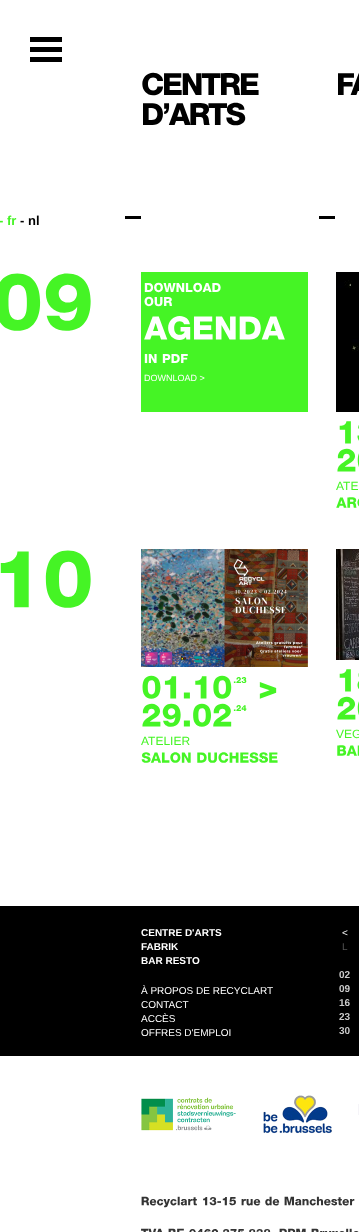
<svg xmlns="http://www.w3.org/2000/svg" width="359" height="1232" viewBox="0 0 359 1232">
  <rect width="100%" height="100%" fill="#ffffff"/>
  <image x="125" y="216" width="210" height="3" href="img1.png"/>
  <image x="30" y="37" width="32" height="25" href="img2.png"/>
  <image x="142" y="72" width="117" height="24" href="img3.png"/>
  <image x="143" y="102" width="103" height="24" href="img4.png"/>
  <image x="338" y="73" width="21" height="22" href="img5.png"/>
  <text x="-1" y="225" font-family="Liberation Sans" font-size="13" font-weight="bold" fill="#45f425">- fr</text>
  <text x="20" y="225" font-family="Liberation Sans" font-size="13" font-weight="bold" fill="#000000">- nl</text>
  <image x="0" y="273" width="91" height="58" href="img6.png"/>
  <rect x="141" y="272" width="167" height="140" fill="#45f425"/>
  <image x="144" y="282" width="77" height="11" href="img7.png"/>
  <image x="144" y="296" width="28" height="11" href="img8.png"/>
  <image x="144" y="316" width="141" height="24" href="img9.png"/>
  <image x="144" y="354" width="13" height="10" href="img10.png"/>
  <image x="162" y="354" width="26" height="9" href="img11.png"/>
  <text x="144" y="381" font-family="Liberation Sans" font-size="9" fill="#ffffff">DOWNLOAD &gt;</text>
  <image x="336" y="272" width="23" height="140" href="img12.png"/>
  <image x="339" y="421" width="20" height="23" href="img13.png"/>
  <image x="337" y="448" width="22" height="24" href="img14.png"/>
  <text x="336" y="490" font-family="Liberation Sans" font-size="12" fill="#45f425">ATE</text>
  <image x="336" y="497" width="23" height="11" href="img15.png"/>
  <image x="0" y="550" width="91" height="58" href="img16.png"/>
  <image x="336" y="549" width="23" height="111" href="img17.png"/>
  <image x="339" y="669" width="20" height="23" href="img18.png"/>
  <image x="337" y="696" width="22" height="24" href="img14.png"/>
  <text x="336" y="738" font-family="Liberation Sans" font-size="12" fill="#45f425">VEG</text>
  <image x="337" y="745" width="22" height="11" href="img19.png"/>
  <image x="141" y="549" width="167" height="118" href="img20.png"/>
  <image x="142" y="675" width="90" height="24" href="img21.png"/>
  <image x="233" y="677" width="14" height="6" href="img22.png"/>
  <image x="259" y="682" width="18" height="17" href="img23.png"/>
  <image x="142" y="703" width="90" height="24" href="img24.png"/>
  <image x="233" y="705" width="14" height="6" href="img25.png"/>
  <text x="141" y="745" font-family="Liberation Sans" font-size="12" fill="#45f425">ATELIER</text>
  <image x="141" y="752" width="50" height="11" href="img26.png"/>
  <image x="197" y="752" width="81" height="11" href="img27.png"/>
  <rect x="0" y="906" width="359" height="150" fill="#000000"/>
  <text x="141" y="936" font-family="Liberation Sans" font-size="10" font-weight="bold" fill="#ffffff">CENTRE D'ARTS</text>
  <text x="141" y="950" font-family="Liberation Sans" font-size="10" font-weight="bold" fill="#ffffff">FABRIK</text>
  <text x="141" y="964" font-family="Liberation Sans" font-size="10" font-weight="bold" fill="#ffffff">BAR RESTO</text>
  <text x="141" y="994" font-family="Liberation Sans" font-size="10" fill="#ffffff">À PROPOS DE RECYCLART</text>
  <text x="141" y="1008" font-family="Liberation Sans" font-size="10" fill="#ffffff">CONTACT</text>
  <text x="141" y="1022" font-family="Liberation Sans" font-size="10" fill="#ffffff">ACCÈS</text>
  <text x="141" y="1036" font-family="Liberation Sans" font-size="10" fill="#ffffff">OFFRES D'EMPLOI</text>
  <text x="342" y="936" font-family="Liberation Sans" font-size="10" fill="#ffffff">&lt;</text>
  <text x="342" y="950" font-family="Liberation Sans" font-size="10" fill="#555555">L</text>
  <text x="339" y="978" font-family="Liberation Sans" font-size="10" font-weight="bold" fill="#cccccc">02</text>
  <text x="339" y="992" font-family="Liberation Sans" font-size="10" font-weight="bold" fill="#cccccc">09</text>
  <text x="339" y="1006" font-family="Liberation Sans" font-size="10" font-weight="bold" fill="#cccccc">16</text>
  <text x="339" y="1020" font-family="Liberation Sans" font-size="10" font-weight="bold" fill="#cccccc">23</text>
  <text x="339" y="1034" font-family="Liberation Sans" font-size="10" font-weight="bold" fill="#cccccc">30</text>
  <image x="141" y="1097" width="95" height="34" href="img28.png"/>
  <image x="263" y="1095" width="69" height="39" href="img29.png"/>
  <rect x="358" y="1104" width="1" height="11" fill="#f5f4f8"/>
  <image x="141" y="1196" width="56" height="12" href="img30.png"/>
  <image x="203" y="1197" width="33" height="9" href="img31.png"/>
  <image x="241" y="1199" width="20" height="7" href="img32.png"/>
  <image x="265" y="1196" width="15" height="10" href="img33.png"/>
  <image x="284" y="1196" width="71" height="10" href="img34.png"/>
  <image x="141" y="1228" width="21" height="4" href="img35.png"/>
  <image x="168" y="1228" width="16" height="4" href="img36.png"/>
  <image x="189" y="1229" width="82" height="3" href="img37.png"/>
  <image x="279" y="1228" width="27" height="4" href="img38.png"/>
  <image x="311" y="1228" width="48" height="4" href="img39.png"/>
</svg>
